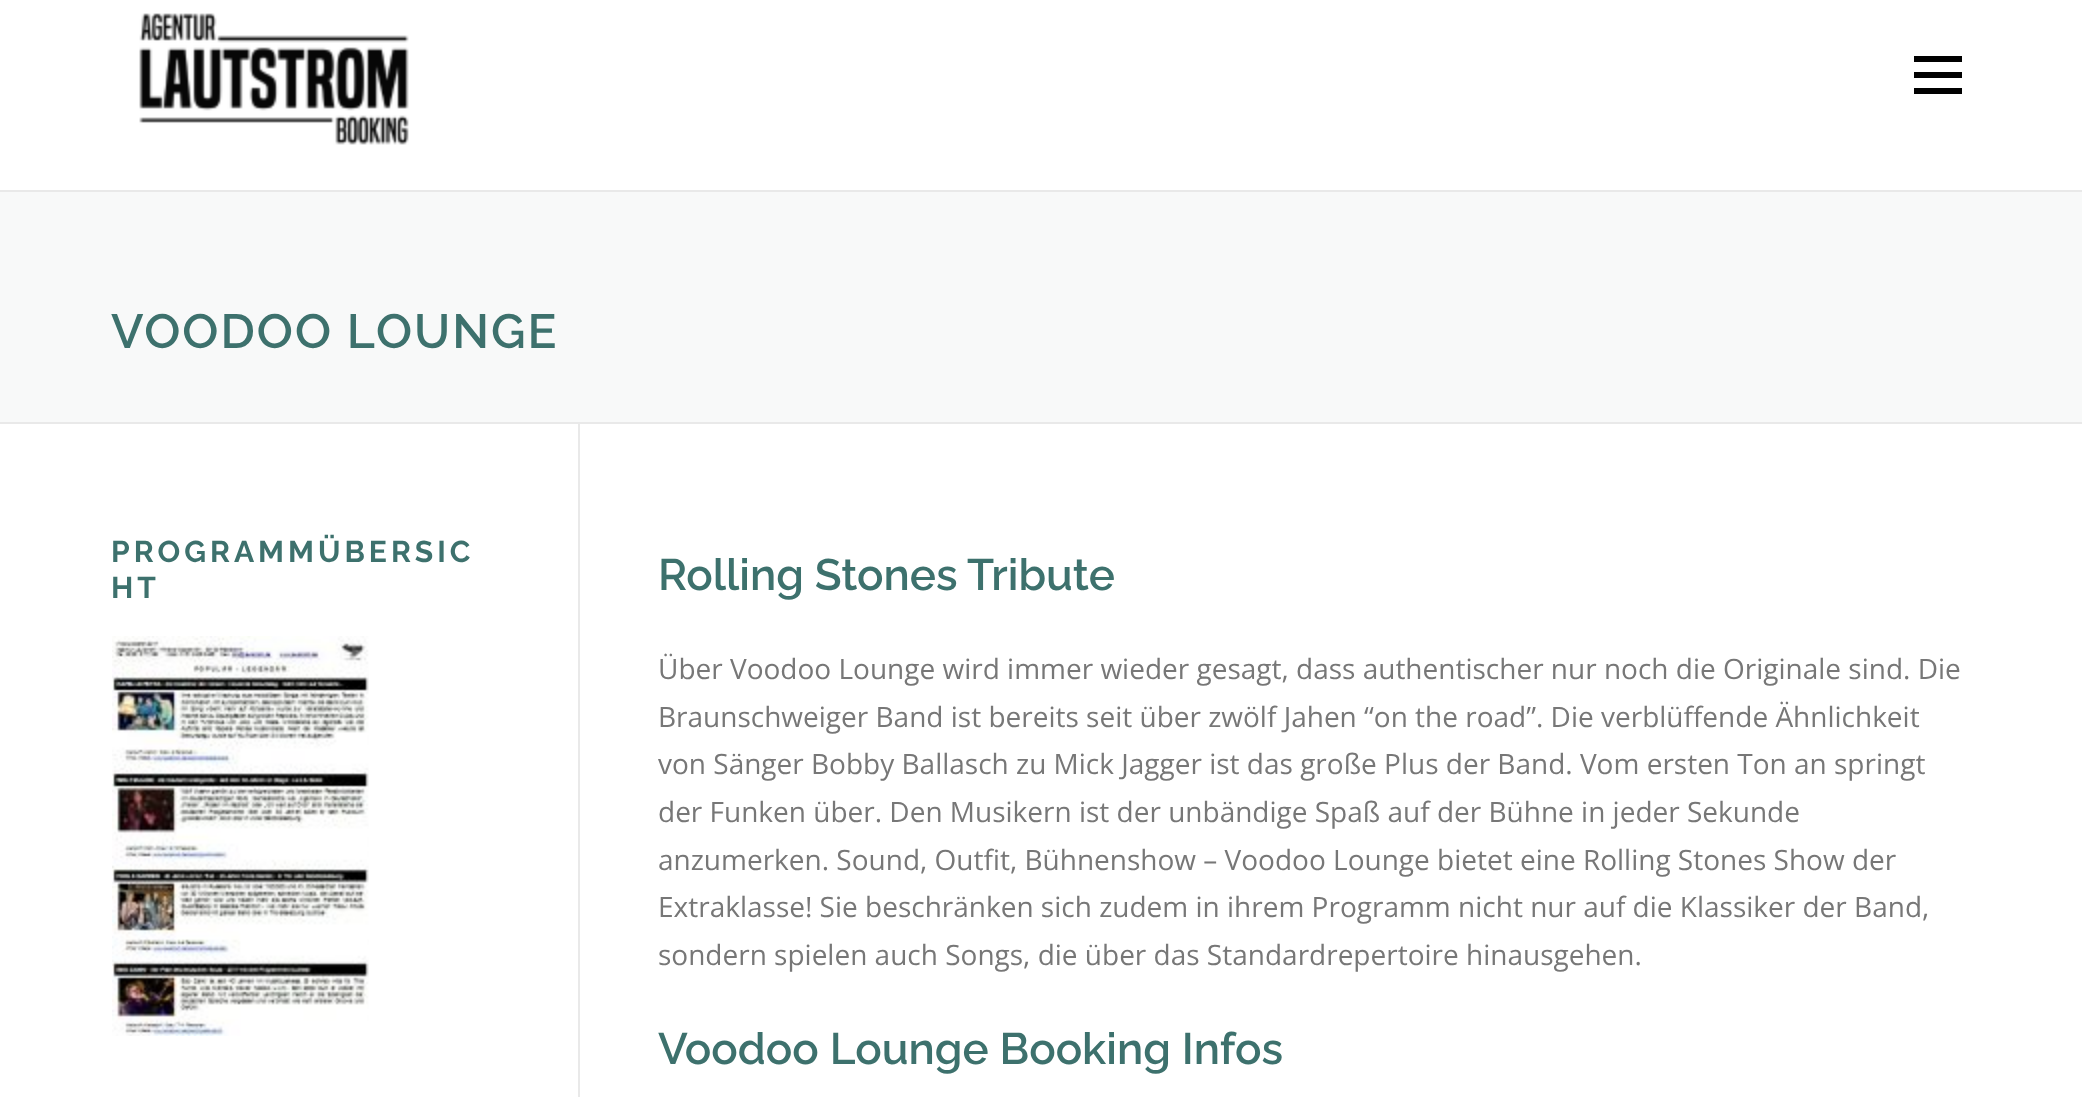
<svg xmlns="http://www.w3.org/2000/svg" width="2082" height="1097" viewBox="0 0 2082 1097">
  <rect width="100%" height="100%" fill="#ffffff"/>
  <image x="139" y="13" width="270" height="132" href="img1.png"/>
  <rect x="1914" y="72" width="48" height="6" fill="#000000"/>
  <rect x="1914" y="56" width="48" height="6" fill="#000000"/>
  <rect x="1914" y="88" width="48" height="6" fill="#000000"/>
  <rect x="0" y="192" width="2082" height="230" fill="#f8f9f9"/>
  <rect x="0" y="190" width="2082" height="2" fill="#e9e9e9"/>
  <rect x="0" y="422" width="2082" height="2" fill="#e9e9e9"/>
  <text x="111" y="348" font-family="Raleway" font-size="48" font-weight="600" letter-spacing="2" fill="#3d716d">VOODOO LOUNGE</text>
  <text x="111" y="562" font-family="Raleway" font-size="30" font-weight="bold" letter-spacing="4" fill="#3d716d">PROGRAMMÜBERSIC</text>
  <text x="111" y="598" font-family="Raleway" font-size="30" font-weight="bold" letter-spacing="4" fill="#3d716d">HT</text>
  <image x="112" y="636" width="257" height="400" href="img2.png"/>
  <rect x="578" y="424" width="2" height="673" fill="#e9e9e9"/>
  <text x="658" y="590" font-family="Raleway" font-size="44" font-weight="600" fill="#3d716d">Rolling Stones Tribute</text>
  <text x="658" y="679" font-family="Open Sans" font-size="28" fill="#777777">Über Voodoo Lounge wird immer wieder gesagt, dass authentischer nur noch die Originale sind. Die</text>
  <text x="658" y="727" font-family="Open Sans" font-size="28" fill="#777777">Braunschweiger Band ist bereits seit über zwölf Jahen “on the road”. Die verblüffende Ähnlichkeit</text>
  <text x="658" y="774" font-family="Open Sans" font-size="28" fill="#777777">von Sänger Bobby Ballasch zu Mick Jagger ist das große Plus der Band. Vom ersten Ton an springt</text>
  <text x="658" y="822" font-family="Open Sans" font-size="28" fill="#777777">der Funken über. Den Musikern ist der unbändige Spaß auf der Bühne in jeder Sekunde</text>
  <text x="658" y="870" font-family="Open Sans" font-size="28" fill="#777777">anzumerken. Sound, Outfit, Bühnenshow – Voodoo Lounge bietet eine Rolling Stones Show der</text>
  <text x="658" y="917" font-family="Open Sans" font-size="28" fill="#777777">Extraklasse! Sie beschränken sich zudem in ihrem Programm nicht nur auf die Klassiker der Band,</text>
  <text x="658" y="965" font-family="Open Sans" font-size="28" fill="#777777">sondern spielen auch Songs, die über das Standardrepertoire hinausgehen.</text>
  <text x="658" y="1064" font-family="Raleway" font-size="44" font-weight="600" fill="#3d716d">Voodoo Lounge Booking Infos</text>
</svg>
